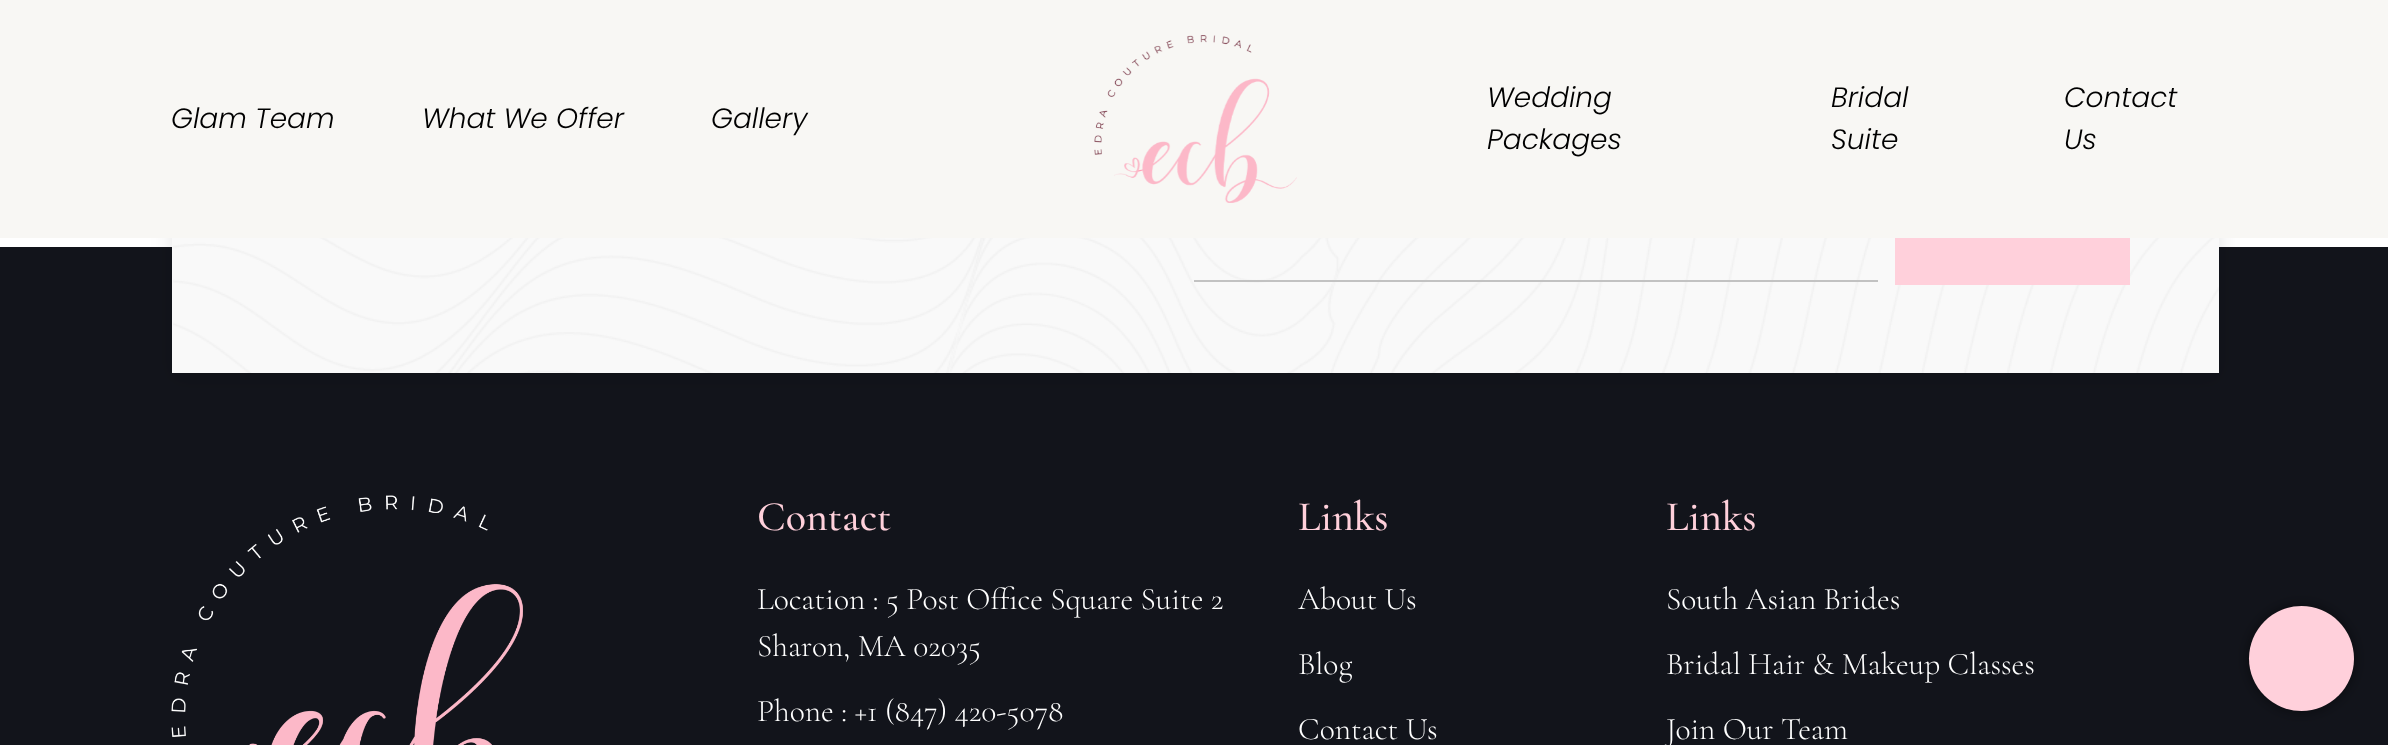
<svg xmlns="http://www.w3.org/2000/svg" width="2388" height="745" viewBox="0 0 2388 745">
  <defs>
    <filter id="blur1" x="-50%" y="-200%" width="200%" height="500%"><feGaussianBlur stdDeviation="10.5"/></filter>
    <filter id="blur2" x="-50%" y="-200%" width="200%" height="500%"><feGaussianBlur stdDeviation="7"/></filter>
  </defs>
  <rect width="100%" height="100%" fill="#ffffff"/>
  <rect x="0" y="247" width="2388" height="498" fill="#12141b"/>
  <rect x="172" y="95" width="2047" height="283" fill="#000000" fill-opacity="0.1" filter="url(#blur1)"/>
  <rect x="0" y="0" width="2388" height="238" fill="#f8f7f4"/>
  <text x="171" y="128" font-family="Poppins" font-size="28" font-weight="300" font-style="italic" fill="#000000">Glam Team</text>
  <text x="422" y="128" font-family="Poppins" font-size="28" font-weight="300" font-style="italic" fill="#000000">What We Offer</text>
  <text x="711" y="128" font-family="Poppins" font-size="28" font-weight="300" font-style="italic" fill="#000000">Gallery</text>
  <image x="1094" y="35" width="203" height="168" href="img1.png"/>
  <text x="1487" y="107" font-family="Poppins" font-size="28" font-weight="300" font-style="italic" fill="#000000">Wedding</text>
  <text x="1487" y="149" font-family="Poppins" font-size="28" font-weight="300" font-style="italic" fill="#000000">Packages</text>
  <text x="1831" y="107" font-family="Poppins" font-size="28" font-weight="300" font-style="italic" fill="#000000">Bridal</text>
  <text x="1831" y="149" font-family="Poppins" font-size="28" font-weight="300" font-style="italic" fill="#000000">Suite</text>
  <text x="2064" y="107" font-family="Poppins" font-size="28" font-weight="300" font-style="italic" fill="#000000">Contact</text>
  <text x="2064" y="149" font-family="Poppins" font-size="28" font-weight="300" font-style="italic" fill="#000000">Us</text>
  <rect x="172" y="238" width="2047" height="135" fill="#f9f9f9"/>
  <image x="173" y="238" width="2046" height="135" href="img2.png"/>
  <rect x="1194" y="280" width="684" height="2" fill="#c2c2c2"/>
  <rect x="1895" y="238" width="235" height="47" fill="#ffd0db"/>
  <image x="171" y="495" width="352" height="250" href="img3.png"/>
  <text x="757" y="530" font-family="Cormorant Garamond" font-size="42" font-weight="500" fill="#ffd0db">Contact</text>
  <text x="757" y="609" font-family="Cormorant Garamond" font-size="31.5" font-weight="300" fill="#ffffff">Location : 5 Post Office Square Suite 2</text>
  <text x="757" y="656" font-family="Cormorant Garamond" font-size="31.5" font-weight="300" fill="#ffffff">Sharon, MA 02035</text>
  <text x="757" y="721" font-family="Cormorant Garamond" font-size="31.5" font-weight="300" fill="#ffffff">Phone : +1 (847) 420-5078</text>
  <text x="1298" y="530" font-family="Cormorant Garamond" font-size="42" font-weight="500" fill="#ffd0db">Links</text>
  <text x="1298" y="609" font-family="Cormorant Garamond" font-size="31.5" font-weight="300" fill="#ffffff">About Us</text>
  <text x="1298" y="674" font-family="Cormorant Garamond" font-size="31.5" font-weight="300" fill="#ffffff">Blog</text>
  <text x="1298" y="739" font-family="Cormorant Garamond" font-size="31.5" font-weight="300" fill="#ffffff">Contact Us</text>
  <text x="1666" y="530" font-family="Cormorant Garamond" font-size="42" font-weight="500" fill="#ffd0db">Links</text>
  <text x="1666" y="609" font-family="Cormorant Garamond" font-size="31.5" font-weight="300" fill="#ffffff">South Asian Brides</text>
  <text x="1666" y="674" font-family="Cormorant Garamond" font-size="31.5" font-weight="300" fill="#ffffff">Bridal Hair &amp; Makeup Classes</text>
  <text x="1666" y="739" font-family="Cormorant Garamond" font-size="31.5" font-weight="300" fill="#ffffff">Join Our Team</text>
  <rect x="2249" y="606" width="105" height="105" rx="52.5" fill="#000000" fill-opacity="0.5" filter="url(#blur2)"/>
  <circle cx="2301.5" cy="658.5" r="52.5" fill="#ffd0db"/>
</svg>
